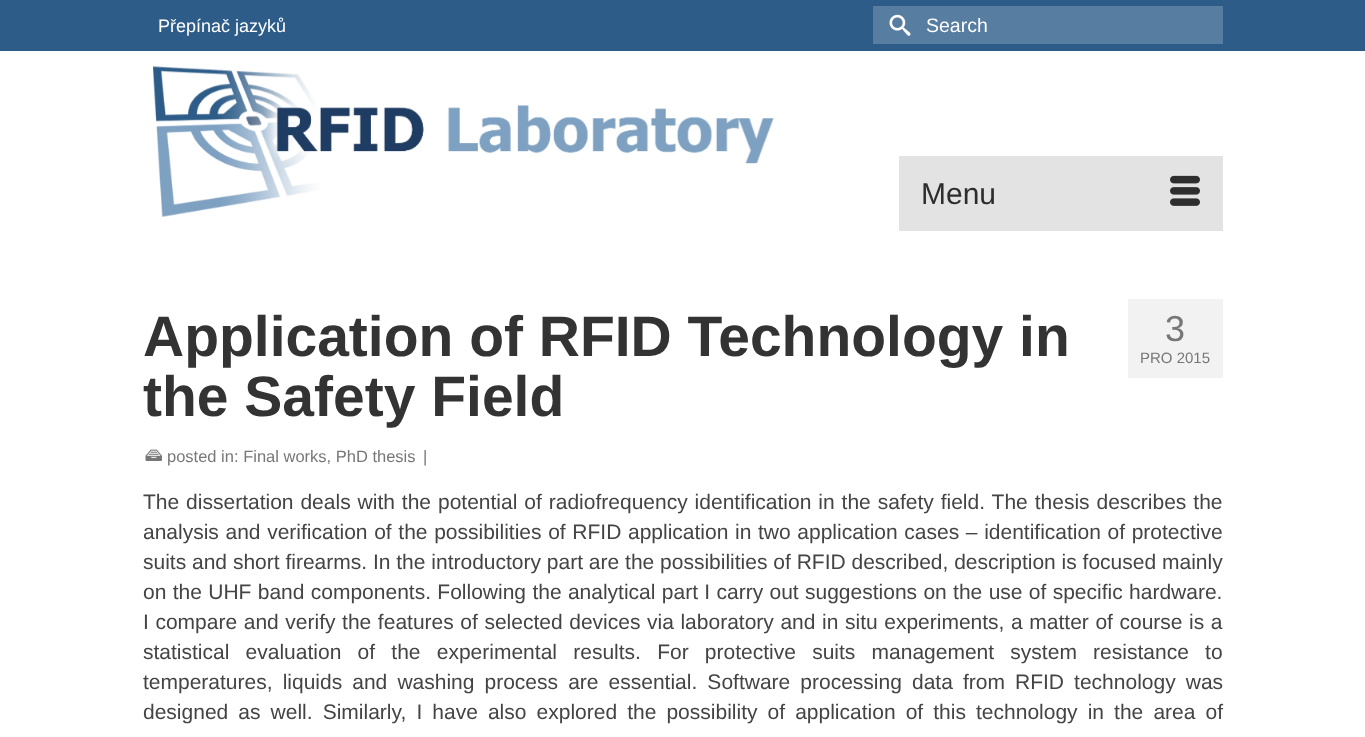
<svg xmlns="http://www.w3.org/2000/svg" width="1365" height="737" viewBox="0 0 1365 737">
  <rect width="100%" height="100%" fill="#ffffff"/>
  <rect x="0" y="0" width="1365" height="51" fill="#2d5c88"/>
  <text x="158" y="32" font-family="Liberation Sans" font-size="18" fill="#ffffff">Přepínač jazyků</text>
  <rect x="873" y="6" width="350" height="38" fill="#577da0"/>
  <image x="889" y="14" width="22" height="22" href="img1.png"/>
  <text x="926" y="32" font-family="Liberation Sans" font-size="19.5" fill="#ffffff">Search</text>
  <image x="153" y="66" width="621" height="151" href="img2.png"/>
  <rect x="899" y="156" width="324" height="75" fill="#e3e3e3"/>
  <text x="921" y="204" font-family="Liberation Sans" font-size="30" fill="#2d2d2d">Menu</text>
  <image x="1170" y="175" width="30" height="31" href="img3.png"/>
  <text x="143" y="356" font-family="Liberation Sans" font-size="57" font-weight="bold" fill="#333333">Application of RFID Technology in</text>
  <text x="143" y="416" font-family="Liberation Sans" font-size="57" font-weight="bold" fill="#333333">the Safety Field</text>
  <image x="145" y="449" width="17" height="12" href="img4.png"/>
  <text x="167" y="462" font-family="Liberation Sans" font-size="16.5" fill="#777777">posted in: Final works, PhD thesis</text>
  <text x="423" y="462" font-family="Liberation Sans" font-size="16.5" fill="#777777">|</text>
  <rect x="1128" y="299" width="95" height="79" fill="#f2f2f2"/>
  <text x="1165" y="341" font-family="Liberation Sans" font-size="36" fill="#777777">3</text>
  <text x="1140" y="363" font-family="Liberation Sans" font-size="15" fill="#777777">PRO 2015</text>
  <text x="143" y="509" word-spacing="1.1" font-family="Liberation Sans" font-size="21" fill="#444444">The dissertation deals with the potential of radiofrequency identification in the safety field. The thesis describes the</text>
  <text x="143" y="539" word-spacing="0.8" font-family="Liberation Sans" font-size="21" fill="#444444">analysis and verification of the possibilities of RFID application in two application cases – identification of protective</text>
  <text x="143" y="569" font-family="Liberation Sans" font-size="21" fill="#444444">suits and short firearms. In the introductory part are the possibilities of RFID described, description is focused mainly</text>
  <text x="143" y="599" word-spacing="0.5" font-family="Liberation Sans" font-size="21" fill="#444444">on the UHF band components. Following the analytical part I carry out suggestions on the use of specific hardware.</text>
  <text x="143" y="629" word-spacing="0.75" font-family="Liberation Sans" font-size="21" fill="#444444">I compare and verify the features of selected devices via laboratory and in situ experiments, a matter of course is a</text>
  <text x="143" y="659" word-spacing="10.4" font-family="Liberation Sans" font-size="21" fill="#444444">statistical evaluation of the experimental results. For protective suits management system resistance to</text>
  <text x="143" y="689" word-spacing="4.25" font-family="Liberation Sans" font-size="21" fill="#444444">temperatures, liquids and washing process are essential. Software processing data from RFID technology was</text>
  <text x="143" y="719" word-spacing="4.25" font-family="Liberation Sans" font-size="21" fill="#444444">designed as well. Similarly, I have also explored the possibility of application of this technology in the area of</text>
</svg>
